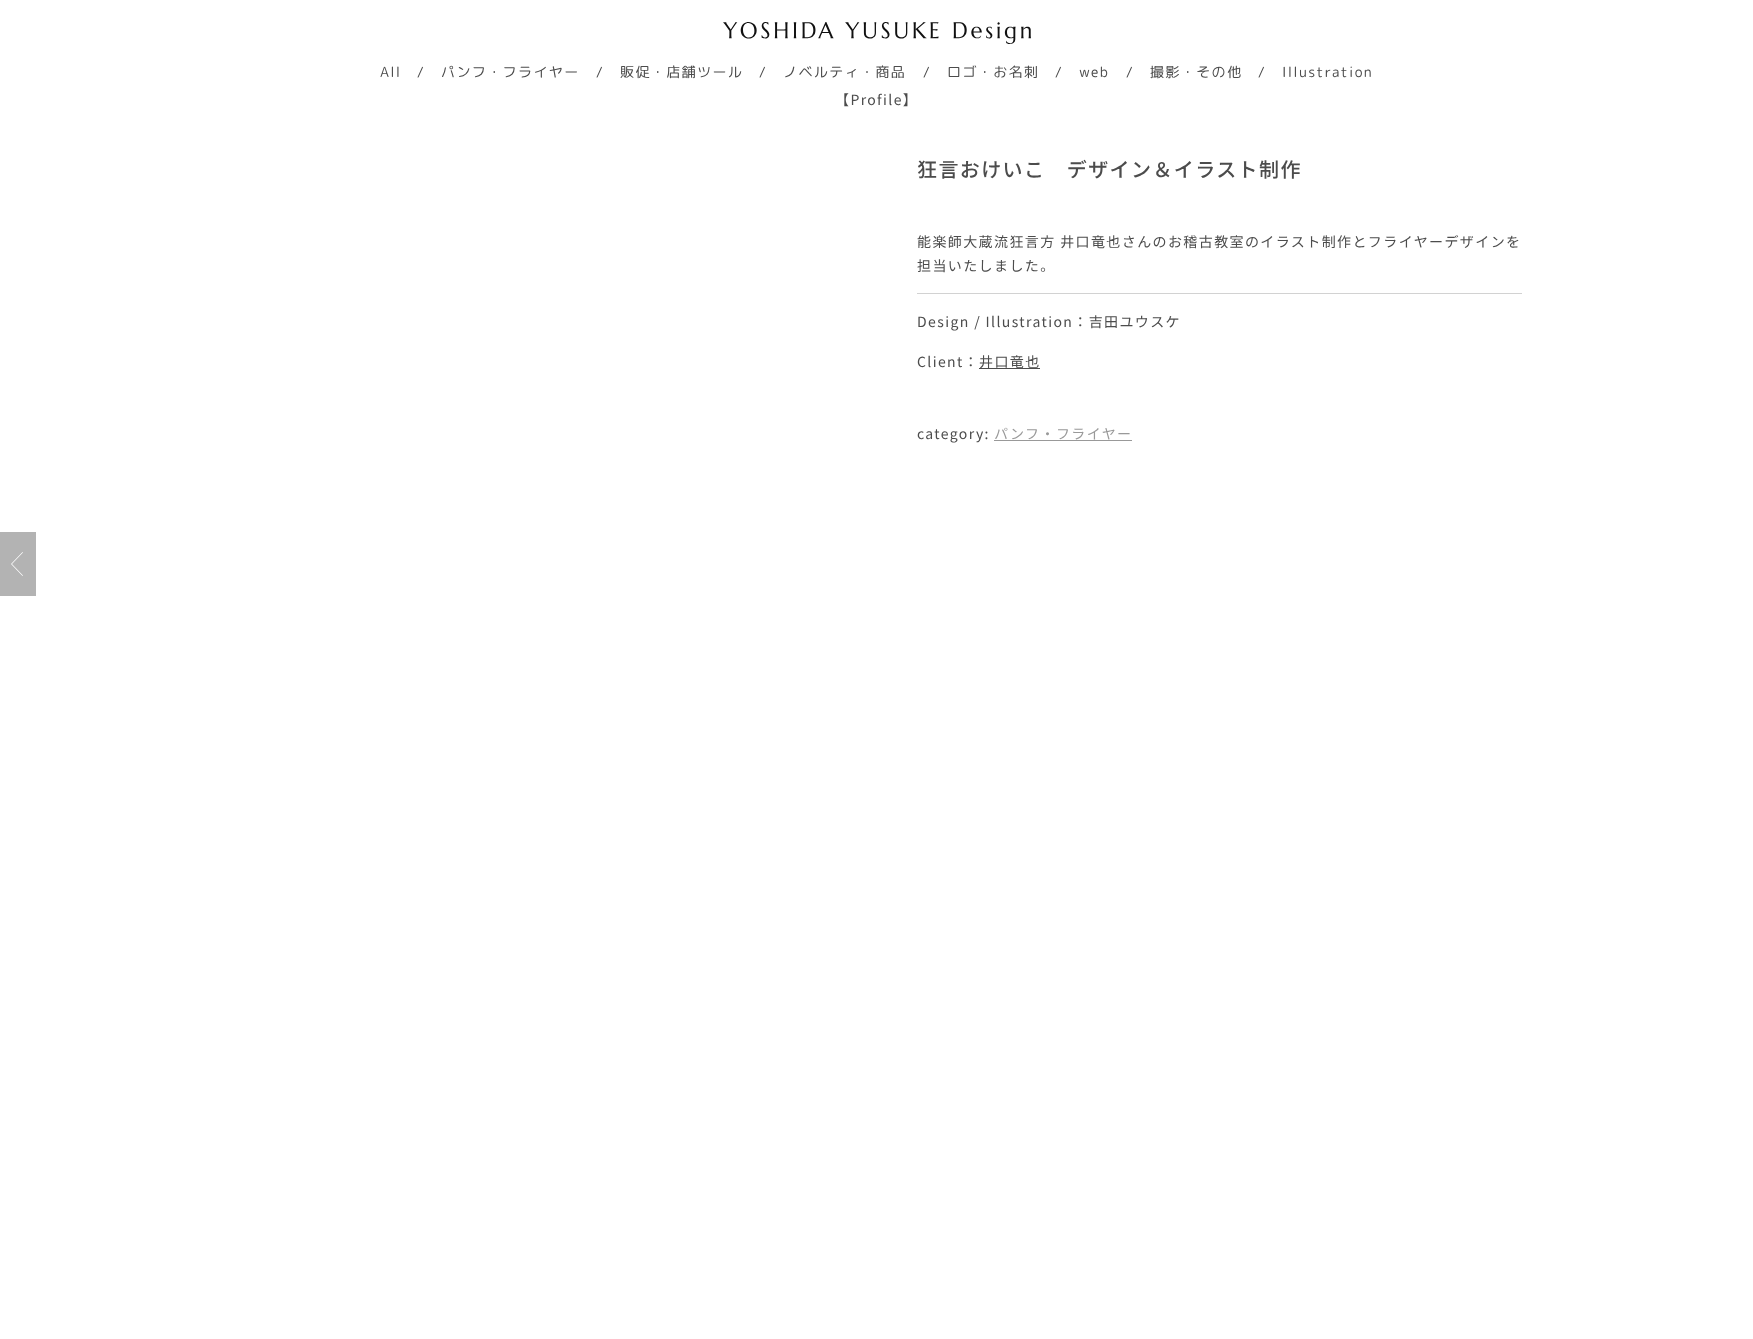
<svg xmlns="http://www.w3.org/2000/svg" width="1753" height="1339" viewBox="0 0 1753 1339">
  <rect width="100%" height="100%" fill="#ffffff"/>
  <image x="723" y="22" width="308" height="22" href="img1.png"/>
  <text x="380" y="77" font-family="'Rounded Mplus 1c'" font-size="14" letter-spacing="1.4" fill="#4c4c4c">All</text>
  <text x="417" y="77" font-family="'Rounded Mplus 1c'" font-size="14" letter-spacing="1.4" fill="#4c4c4c">/</text>
  <text x="441" y="77" font-family="'Rounded Mplus 1c'" font-size="14" letter-spacing="1.4" fill="#4c4c4c">パンフ・フライヤー</text>
  <text x="596" y="77" font-family="'Rounded Mplus 1c'" font-size="14" letter-spacing="1.4" fill="#4c4c4c">/</text>
  <text x="620" y="77" font-family="'Rounded Mplus 1c'" font-size="14" letter-spacing="1.4" fill="#4c4c4c">販促・店舗ツール</text>
  <text x="759" y="77" font-family="'Rounded Mplus 1c'" font-size="14" letter-spacing="1.4" fill="#4c4c4c">/</text>
  <text x="783" y="77" font-family="'Rounded Mplus 1c'" font-size="14" letter-spacing="1.4" fill="#4c4c4c">ノベルティ・商品</text>
  <text x="923" y="77" font-family="'Rounded Mplus 1c'" font-size="14" letter-spacing="1.4" fill="#4c4c4c">/</text>
  <text x="947" y="77" font-family="'Rounded Mplus 1c'" font-size="14" letter-spacing="1.4" fill="#4c4c4c">ロゴ・お名刺</text>
  <text x="1055" y="77" font-family="'Rounded Mplus 1c'" font-size="14" letter-spacing="1.4" fill="#4c4c4c">/</text>
  <text x="1079" y="77" font-family="'Rounded Mplus 1c'" font-size="14" letter-spacing="1.4" fill="#4c4c4c">web</text>
  <text x="1126" y="77" font-family="'Rounded Mplus 1c'" font-size="14" letter-spacing="1.4" fill="#4c4c4c">/</text>
  <text x="1150" y="77" font-family="'Rounded Mplus 1c'" font-size="14" letter-spacing="1.4" fill="#4c4c4c">撮影・その他</text>
  <text x="1258" y="77" font-family="'Rounded Mplus 1c'" font-size="14" letter-spacing="1.4" fill="#4c4c4c">/</text>
  <text x="1282" y="77" font-family="'Rounded Mplus 1c'" font-size="14" letter-spacing="1.4" fill="#4c4c4c">Illustration</text>
  <text x="835" y="105" font-family="Noto Sans JP" font-size="14" letter-spacing="1.4" fill="#4c4c4c">【Profile】</text>
  <text x="917" y="177" font-family="Noto Sans JP" font-size="20" font-weight="500" letter-spacing="1.4" fill="#4c4c4c">狂言おけいこ　デザイン＆イラスト制作</text>
  <text x="917" y="247" font-family="Noto Sans JP" font-size="14" letter-spacing="1.4" fill="#4c4c4c">能楽師大蔵流狂言方 井口竜也さんのお稽古教室のイラスト制作とフライヤーデザインを</text>
  <text x="917" y="271" font-family="Noto Sans JP" font-size="14" letter-spacing="1.4" fill="#4c4c4c">担当いたしました。</text>
  <rect x="917" y="293" width="605" height="1" fill="#d2d2d2"/>
  <text x="917" y="327" font-family="Noto Sans JP" font-size="14" letter-spacing="1.4" fill="#4c4c4c">Design / Illustration：吉田ユウスケ</text>
  <text x="917" y="367" font-family="Noto Sans JP" font-size="14" letter-spacing="1.4" fill="#4c4c4c">Client：</text>
  <rect x="979" y="368" width="61" height="1" fill="#4c4c4c"/>
  <text x="979" y="367" font-family="Noto Sans JP" font-size="14" letter-spacing="1.4" fill="#4c4c4c">井口竜也</text>
  <text x="917" y="439" font-family="Noto Sans JP" font-size="14" letter-spacing="1.4" fill="#4c4c4c">category:</text>
  <text x="994" y="439" font-family="Noto Sans JP" font-size="14" letter-spacing="1.4" fill="#999999">パンフ・フライヤー</text>
  <rect x="994" y="440" width="138" height="1" fill="#999999"/>
  <rect x="0" y="532" width="36" height="64" fill="#b3b3b3"/>
  <path d="M12 564L23 552.5L22.5 552L11 564L22.5 576L23 575.5Z" fill="#ffffff" fill-rule="evenodd"/>
</svg>
